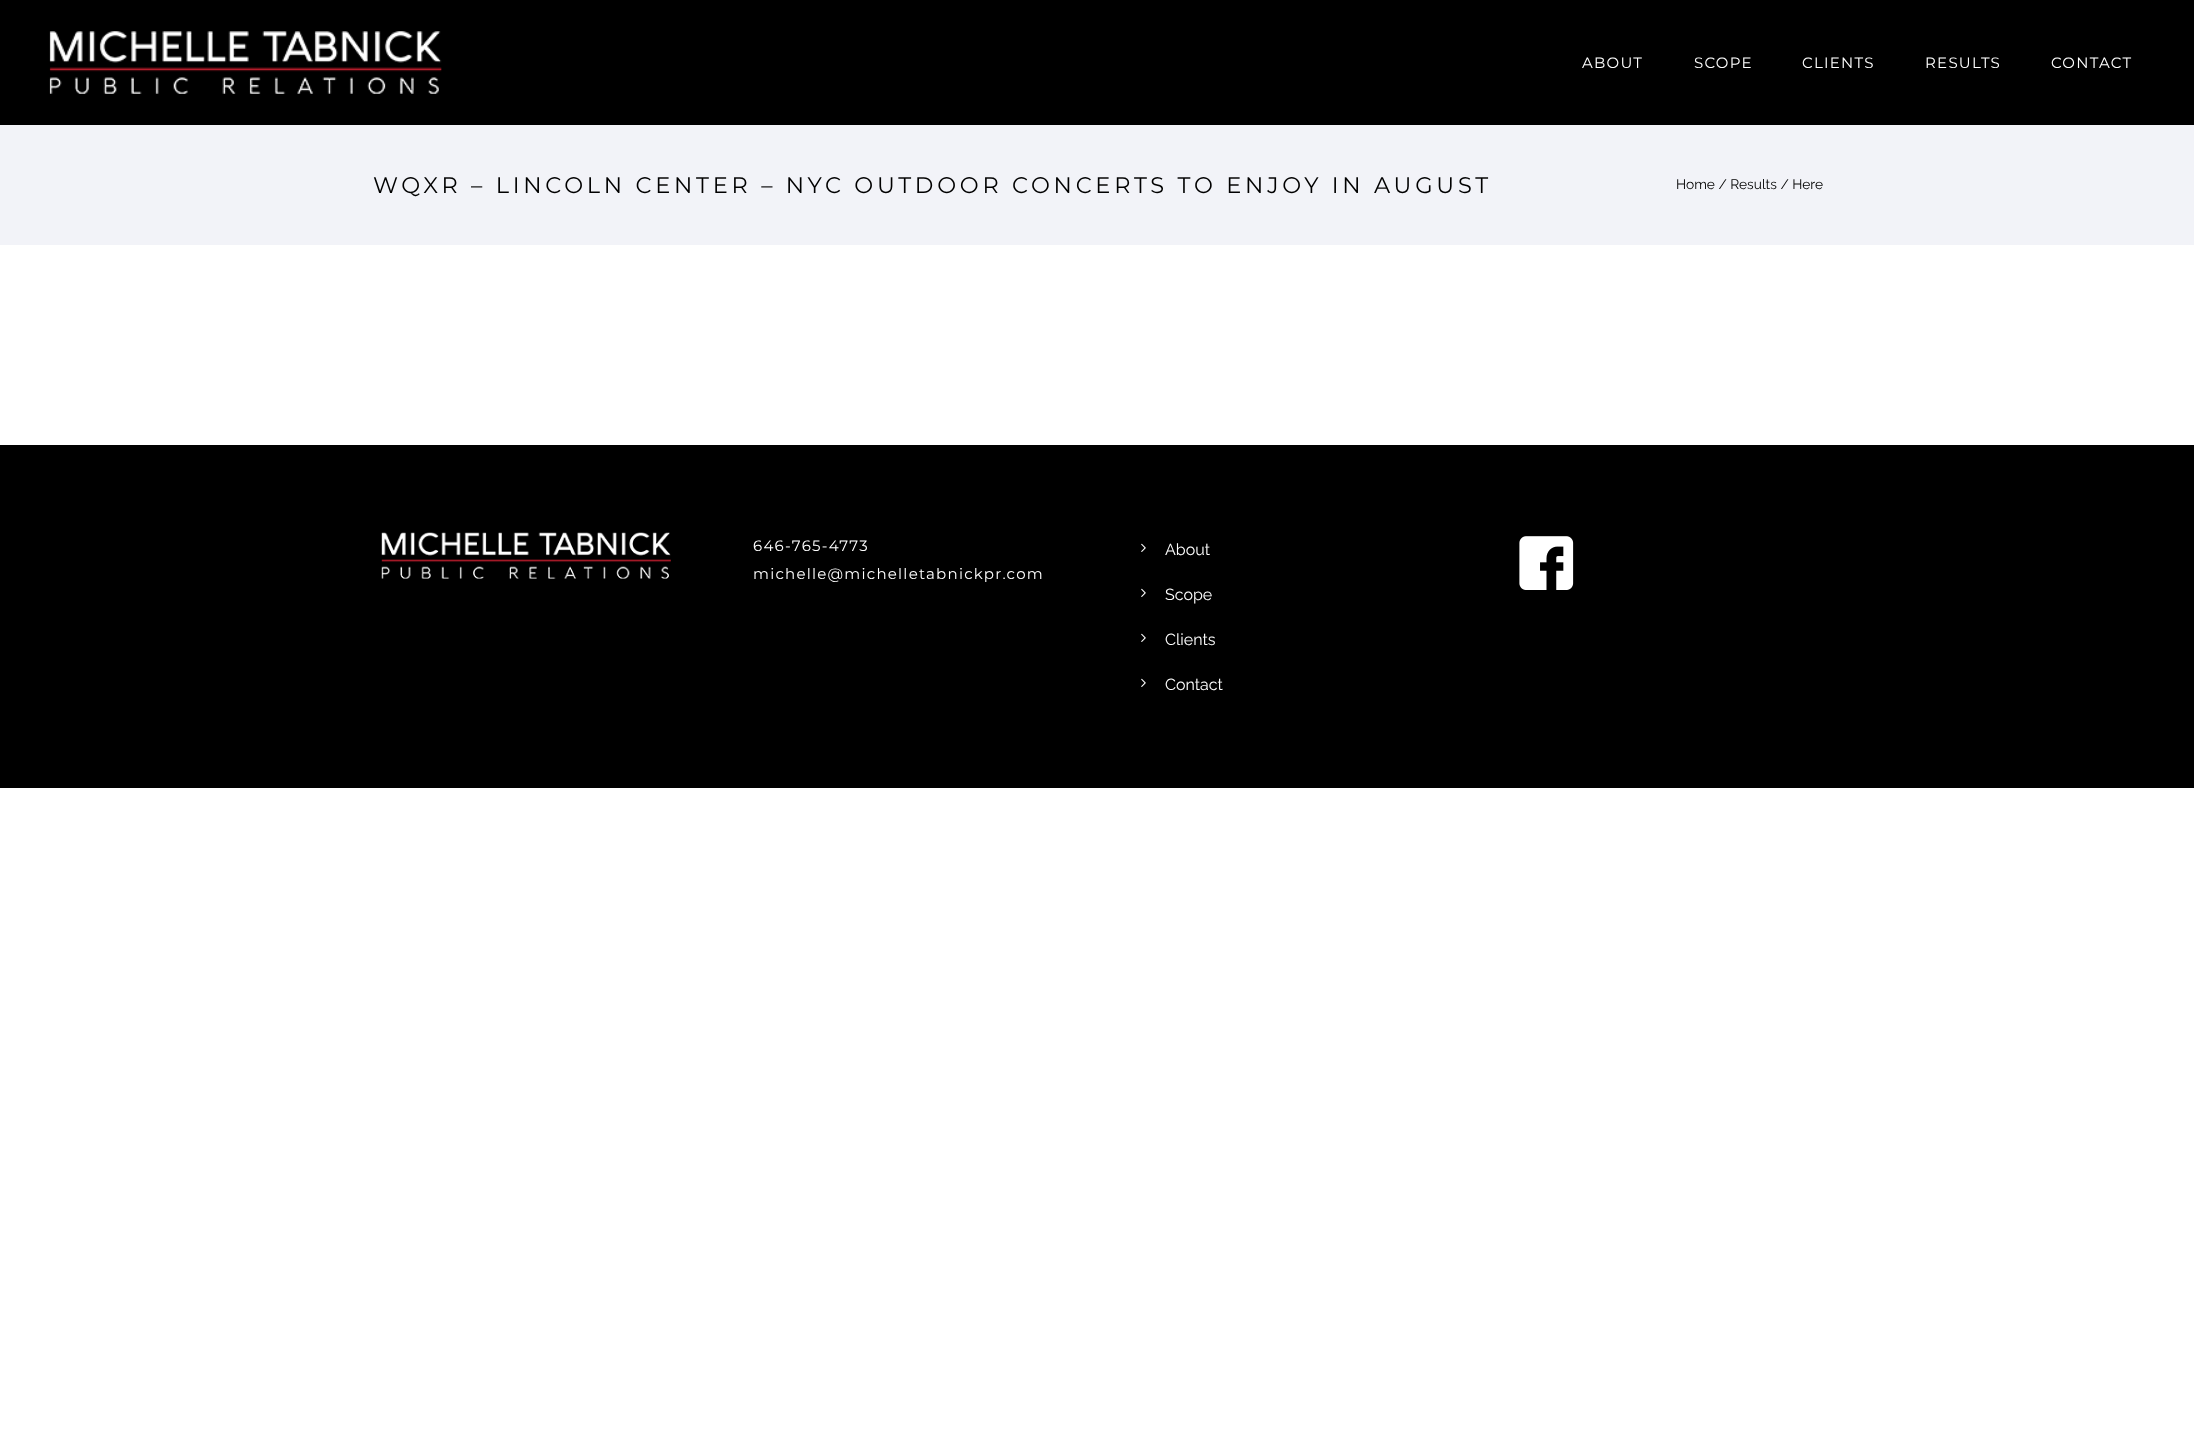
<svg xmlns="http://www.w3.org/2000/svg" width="2194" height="1434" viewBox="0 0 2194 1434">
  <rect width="100%" height="100%" fill="#ffffff"/>
  <rect x="0" y="0" width="2194" height="125" fill="#000000"/>
  <image x="49" y="31" width="393" height="63" href="img1.png"/>
  <text x="1582" y="68" font-family="Montserrat" font-size="15" letter-spacing="1.25" fill="#ffffff">ABOUT</text>
  <text x="1694" y="68" font-family="Montserrat" font-size="15" letter-spacing="1.25" fill="#ffffff">SCOPE</text>
  <text x="1802" y="68" font-family="Montserrat" font-size="15" letter-spacing="1.25" fill="#ffffff">CLIENTS</text>
  <text x="1925" y="68" font-family="Montserrat" font-size="15" letter-spacing="1.25" fill="#ffffff">RESULTS</text>
  <text x="2051" y="68" font-family="Montserrat" font-size="15" letter-spacing="1.25" fill="#ffffff">CONTACT</text>
  <rect x="0" y="125" width="2194" height="120" fill="#f2f3f8"/>
  <text x="373" y="193" font-family="Montserrat" font-size="22.5" letter-spacing="3.75" fill="#000000">WQXR – LINCOLN CENTER – NYC OUTDOOR CONCERTS TO ENJOY IN AUGUST</text>
  <text x="1676" y="189" font-family="Raleway" font-size="13.75" fill="#000000">Home / Results / Here</text>
  <rect x="0" y="445" width="2194" height="343" fill="#000000"/>
  <image x="381" y="532" width="290" height="47" href="img2.png"/>
  <text x="753" y="551" font-family="Montserrat" font-size="15" letter-spacing="1.25" fill="#ffffff">646-765-4773</text>
  <text x="753" y="579" font-family="Montserrat" font-size="15" letter-spacing="1.25" fill="#ffffff">michelle@michelletabnickpr.com</text>
  <image x="1141" y="543" width="5" height="9" href="img3.png"/>
  <text x="1165" y="555" font-family="Raleway" font-size="16" fill="#ffffff">About</text>
  <image x="1141" y="588" width="5" height="9" href="img3.png"/>
  <text x="1165" y="600" font-family="Raleway" font-size="16" fill="#ffffff">Scope</text>
  <image x="1141" y="633" width="5" height="9" href="img3.png"/>
  <text x="1165" y="645" font-family="Raleway" font-size="16" fill="#ffffff">Clients</text>
  <image x="1141" y="678" width="5" height="9" href="img3.png"/>
  <text x="1165" y="690" font-family="Raleway" font-size="16" fill="#ffffff">Contact</text>
  <image x="1519" y="536" width="55" height="54" href="img4.png"/>
</svg>
